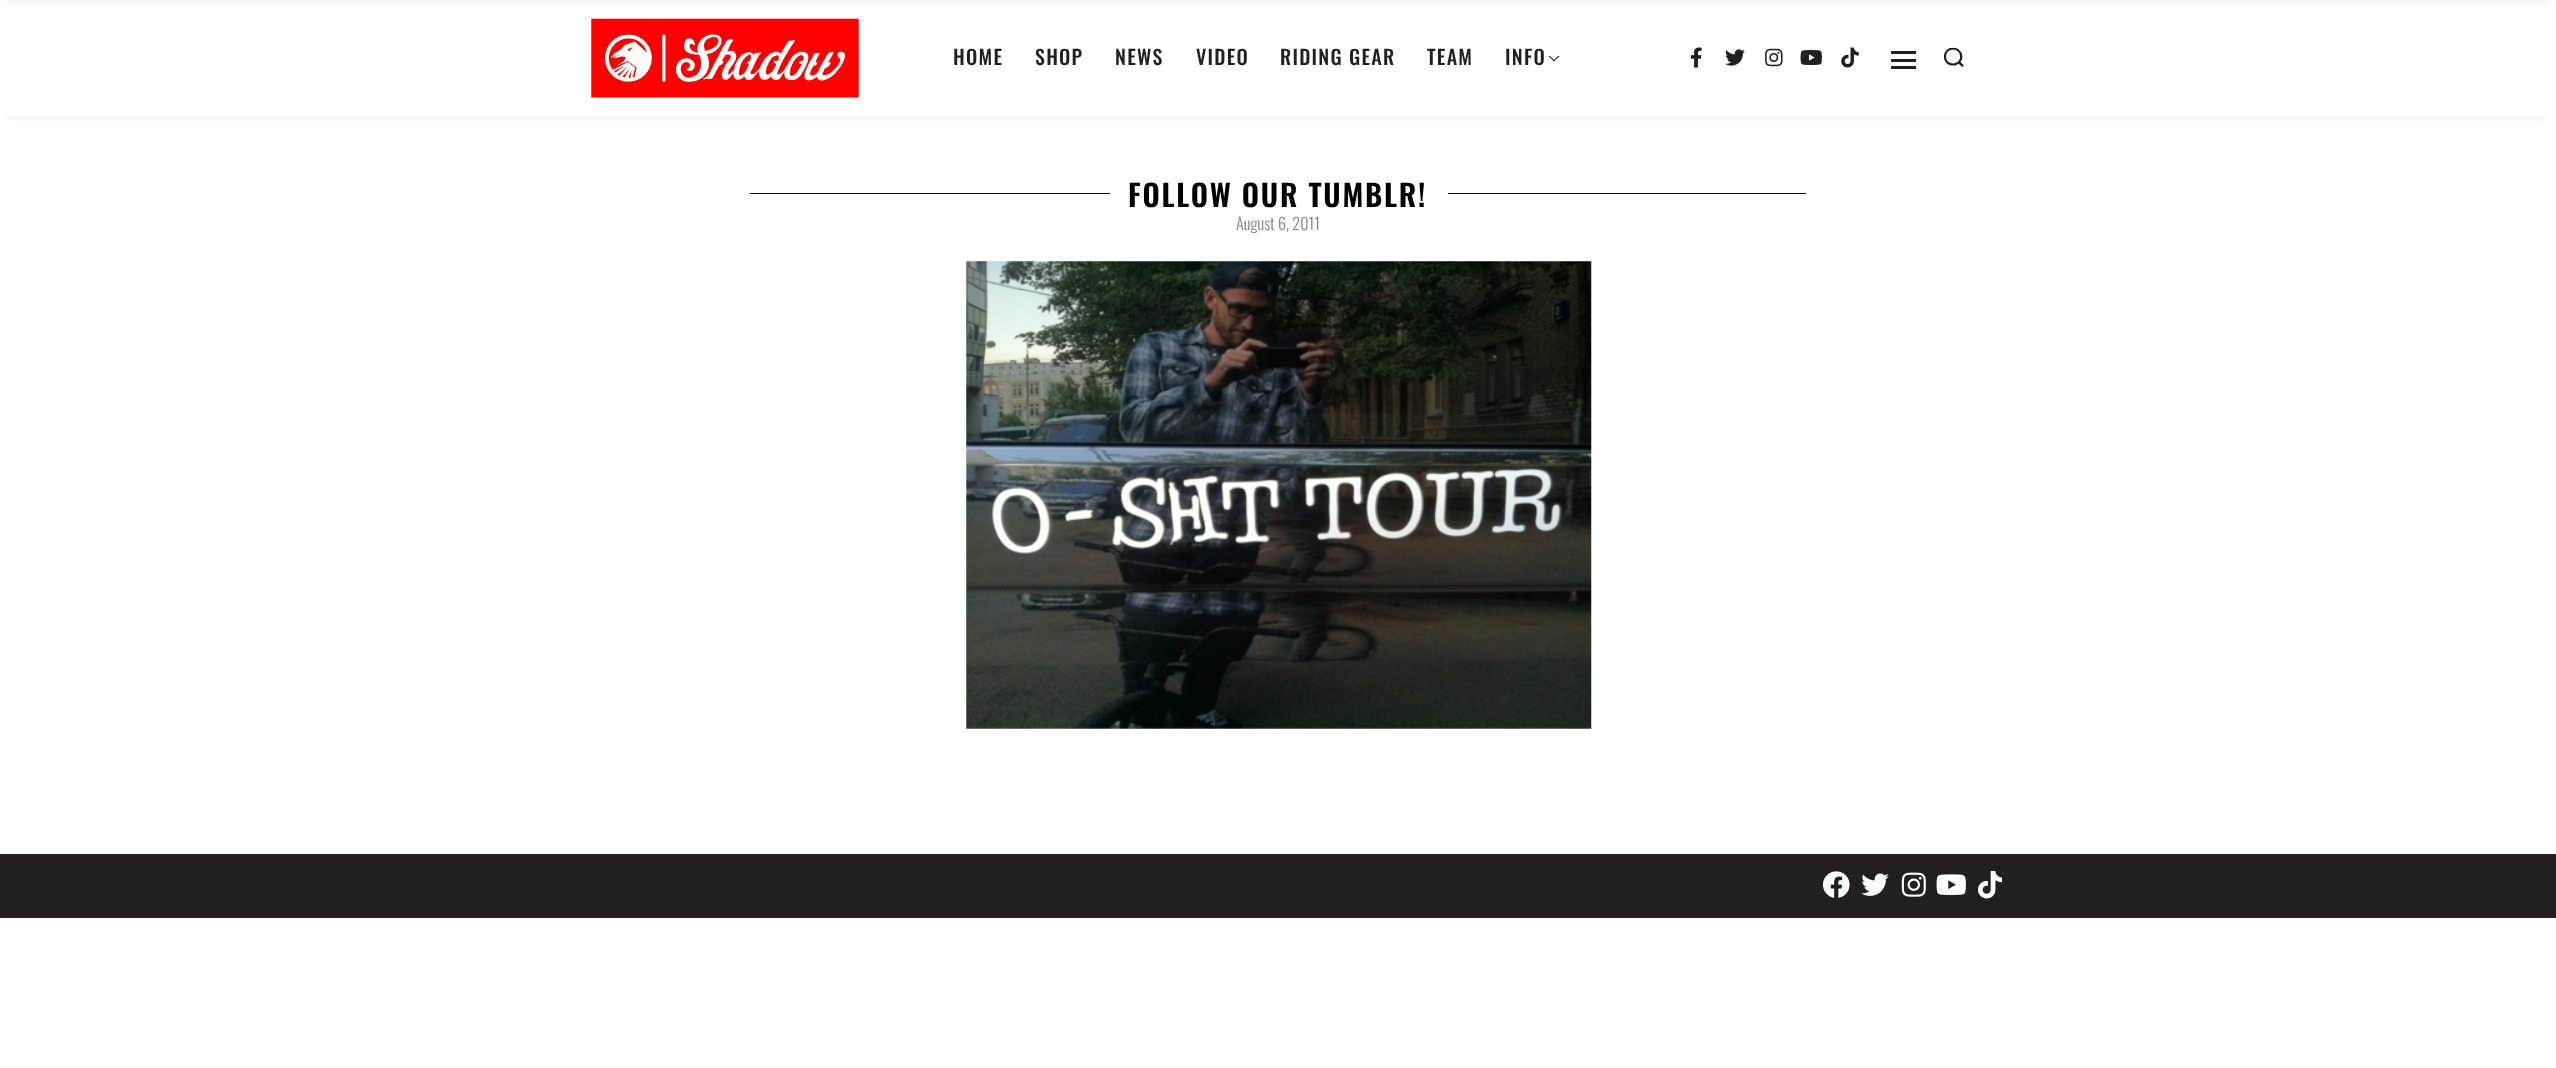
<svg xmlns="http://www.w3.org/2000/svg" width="2556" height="1068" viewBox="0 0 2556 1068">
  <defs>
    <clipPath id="clip1"><rect x="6" y="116" width="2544" height="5"/></clipPath>
    <filter id="blur1" x="-50%" y="-200%" width="200%" height="500%"><feGaussianBlur stdDeviation="6"/></filter>
  </defs>
  <rect width="100%" height="100%" fill="#ffffff"/>
  <g clip-path="url(#clip1)">
    <rect x="6" y="13" width="2544" height="103" fill="#000000" fill-opacity="0.1" filter="url(#blur1)"/>
  </g>
  <image x="591" y="18" width="268" height="80" href="img1.png"/>
  <rect x="6" y="-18" width="2544" height="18" fill="#000000" fill-opacity="0.1" filter="url(#blur1)"/>
  <text x="953" y="65" font-family="Oswald" font-size="20" font-weight="500" letter-spacing="1.25" fill="#231f20">HOME</text>
  <text x="1035" y="65" font-family="Oswald" font-size="20" font-weight="500" letter-spacing="1.25" fill="#231f20">SHOP</text>
  <text x="1115" y="65" font-family="Oswald" font-size="20" font-weight="500" letter-spacing="1.25" fill="#231f20">NEWS</text>
  <text x="1196" y="65" font-family="Oswald" font-size="20" font-weight="500" letter-spacing="1.25" fill="#231f20">VIDEO</text>
  <text x="1280" y="65" font-family="Oswald" font-size="20" font-weight="500" letter-spacing="1.25" fill="#231f20">RIDING GEAR</text>
  <text x="1427" y="65" font-family="Oswald" font-size="20" font-weight="500" letter-spacing="1.25" fill="#231f20">TEAM</text>
  <text x="1505" y="65" font-family="Oswald" font-size="20" font-weight="500" letter-spacing="1.25" fill="#231f20">INFO</text>
  <path d="M1559.5 56L1554 61.5V60L1558 56ZM1554 61.5L1548.5 56H1550L1554 60Z" fill="#231f20"/>
  <image x="1690" y="47" width="12" height="21" href="img2.png"/>
  <image x="1725" y="49" width="20" height="17" href="img3.png"/>
  <image x="1765" y="48" width="18" height="19" href="img4.png"/>
  <image x="1800" y="50" width="22" height="15" href="img5.png"/>
  <image x="1841" y="47" width="18" height="21" href="img6.png"/>
  <rect x="1891" y="51" width="25" height="3" fill="#231f20"/>
  <rect x="1891" y="59" width="25" height="3" fill="#231f20"/>
  <rect x="1891" y="66" width="25" height="3" fill="#231f20"/>
  <image x="1944" y="47" width="20" height="20" href="img7.png"/>
  <rect x="750" y="193" width="360" height="1" fill="#000000"/>
  <text x="1128" y="207" font-family="Oswald" font-size="30" font-weight="600" letter-spacing="1.75" fill="#000000">FOLLOW OUR TUMBLR!</text>
  <rect x="1448" y="193" width="358" height="1" fill="#000000"/>
  <text x="1236" y="230" font-family="Oswald" font-size="16.25" font-weight="300" fill="#808080">August 6, 2011</text>
  <image x="966" y="261" width="626" height="468" href="img8.png"/>
  <rect x="0" y="854" width="2556" height="64" fill="#231f20"/>
  <image x="1822" y="871" width="28" height="27" href="img9.png"/>
  <image x="1861" y="873" width="28" height="23" href="img10.png"/>
  <image x="1901" y="872" width="25" height="25" href="img11.png"/>
  <image x="1936" y="874" width="30" height="21" href="img12.png"/>
  <image x="1978" y="870" width="25" height="29" href="img13.png"/>
</svg>
